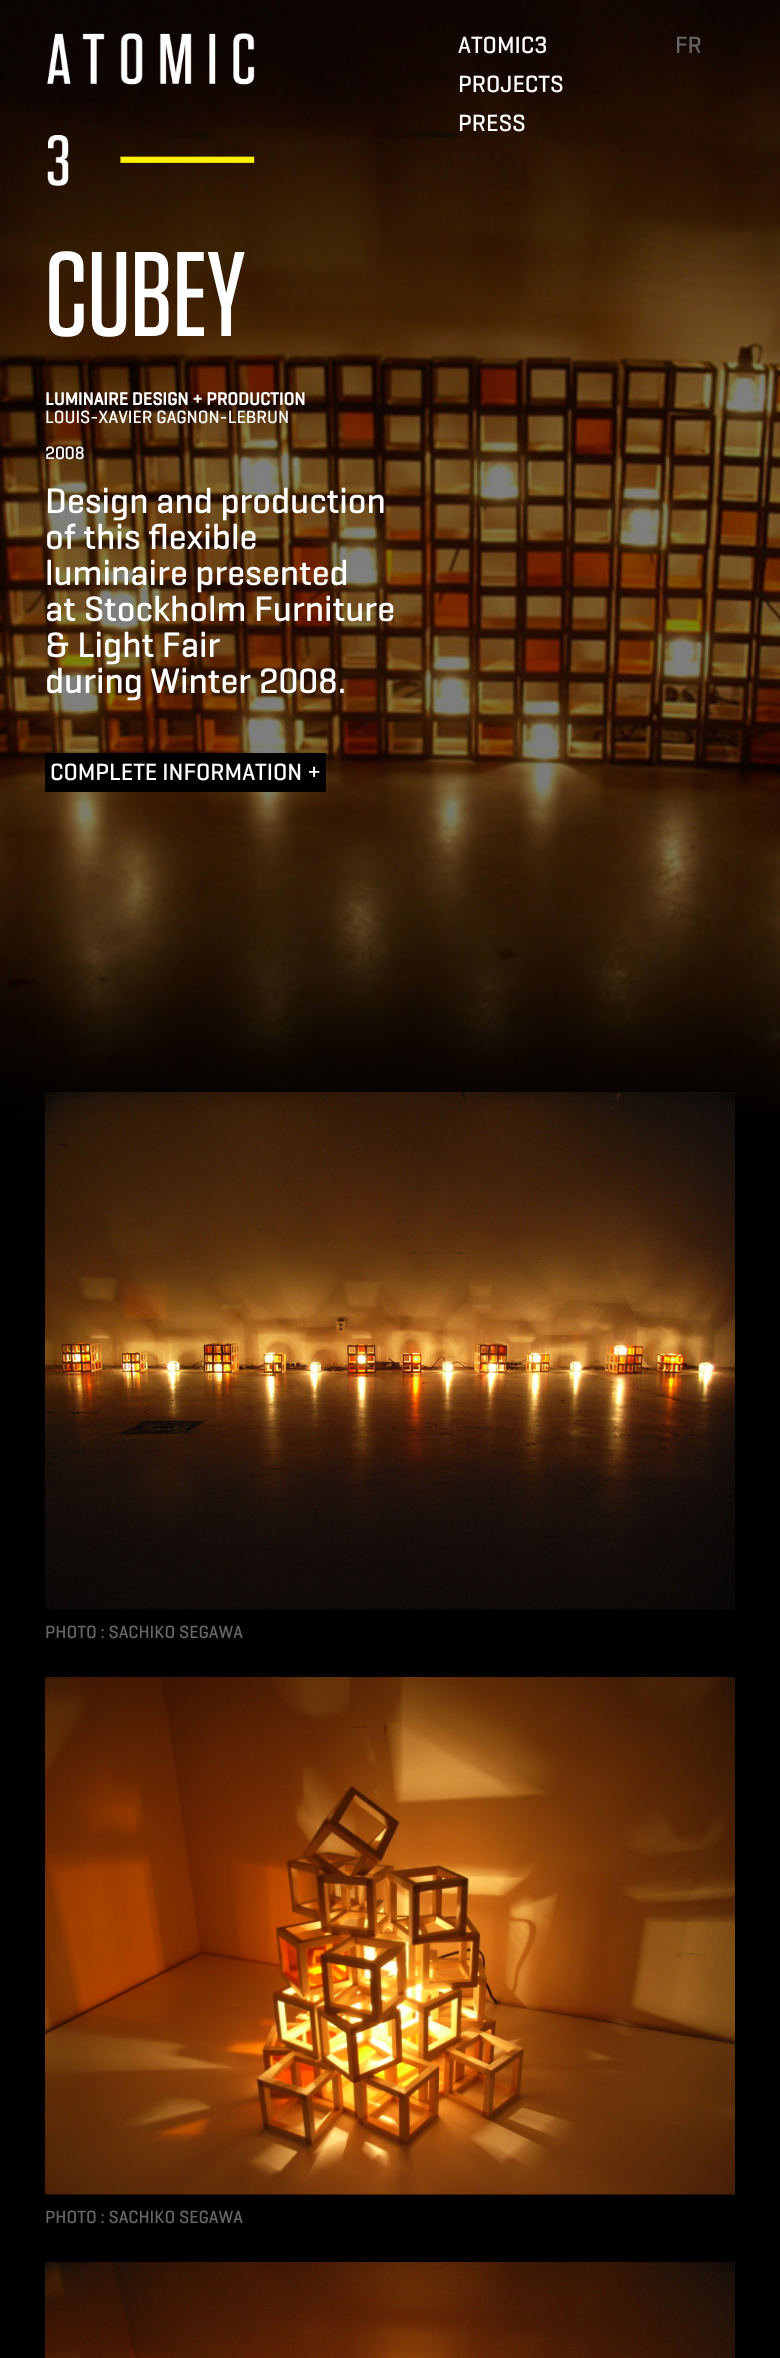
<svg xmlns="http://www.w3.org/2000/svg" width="780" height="2358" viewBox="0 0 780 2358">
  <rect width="100%" height="100%" fill="#000000"/>
  <image x="0" y="0" width="780" height="1118" href="img1.png"/>
  <image x="47" y="33" width="208" height="153" href="img2.png"/>
  <text x="458" y="53" font-family="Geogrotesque" font-size="24" font-weight="500" fill="#ffffff">ATOMIC3</text>
  <text x="458" y="92" font-family="Geogrotesque" font-size="24" font-weight="500" fill="#ffffff">PROJECTS</text>
  <text x="458" y="131" font-family="Geogrotesque" font-size="24" font-weight="500" fill="#ffffff">PRESS</text>
  <text x="675" y="53" font-family="Geogrotesque" font-size="24" font-weight="500" fill="#666666">FR</text>
  <text x="45" y="336" font-family="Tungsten" font-size="120" font-weight="500" fill="#ffffff">CUBEY</text>
  <text x="45" y="405" font-family="Geogrotesque" font-size="18" font-weight="bold" fill="#ffffff">LUMINAIRE DESIGN + PRODUCTION</text>
  <text x="45" y="423" font-family="Geogrotesque" font-size="18" font-weight="500" fill="#ffffff">LOUIS-XAVIER GAGNON-LEBRUN</text>
  <text x="45" y="459" font-family="Geogrotesque" font-size="18" font-weight="500" fill="#ffffff">2008</text>
  <text x="45" y="513" font-family="Geogrotesque" font-size="36" font-weight="500" fill="#ffffff">Design and production</text>
  <text x="45" y="549" font-family="Geogrotesque" font-size="36" font-weight="500" fill="#ffffff">of this flexible</text>
  <text x="45" y="585" font-family="Geogrotesque" font-size="36" font-weight="500" fill="#ffffff">luminaire presented</text>
  <text x="45" y="621" font-family="Geogrotesque" font-size="36" font-weight="500" fill="#ffffff">at Stockholm Furniture</text>
  <text x="45" y="657" font-family="Geogrotesque" font-size="36" font-weight="500" fill="#ffffff">&amp; Light Fair</text>
  <text x="45" y="693" font-family="Geogrotesque" font-size="36" font-weight="500" fill="#ffffff">during Winter 2008.</text>
  <rect x="45" y="753" width="281" height="39" fill="#000000"/>
  <text x="50" y="780" font-family="Geogrotesque" font-size="24" font-weight="500" fill="#ffffff">COMPLETE INFORMATION +</text>
  <image x="45" y="1092" width="690" height="518" href="img3.png"/>
  <text x="45" y="1638" font-family="Geogrotesque" font-size="18" font-weight="500" fill="#666666">PHOTO : SACHIKO SEGAWA</text>
  <image x="45" y="1677" width="690" height="518" href="img4.png"/>
  <text x="45" y="2223" font-family="Geogrotesque" font-size="18" font-weight="500" fill="#666666">PHOTO : SACHIKO SEGAWA</text>
  <image x="45" y="2262" width="690" height="96" href="img5.png"/>
</svg>
